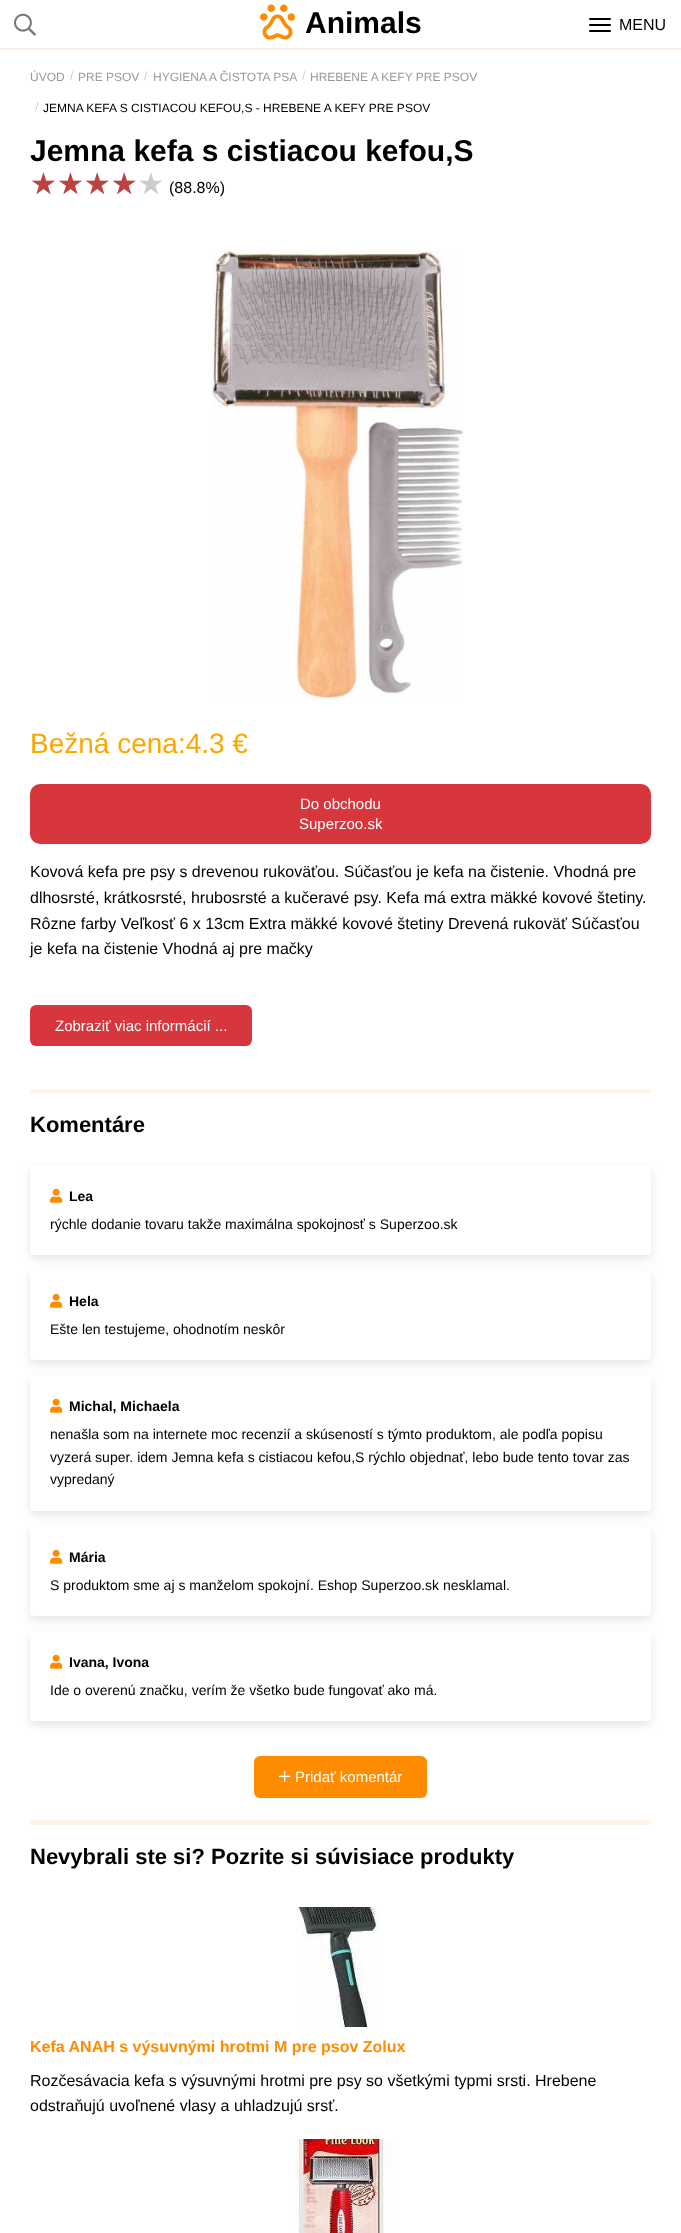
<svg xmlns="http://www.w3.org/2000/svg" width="681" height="2233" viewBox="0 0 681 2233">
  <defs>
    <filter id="blur1" x="-50%" y="-200%" width="200%" height="500%"><feGaussianBlur stdDeviation="5"/></filter>
  </defs>
  <rect width="100%" height="100%" fill="#ffffff"/>
  <rect x="0" y="48" width="681" height="2" fill="#f8ede0"/>
  <image x="14" y="13" width="22" height="23" href="img1.png"/>
  <image x="260" y="4" width="35" height="36" href="img2.png"/>
  <text x="305" y="33" font-family="Liberation Sans" font-size="30" font-weight="bold" fill="#000000">Animals</text>
  <rect x="589" y="18" width="22" height="2" rx="1" fill="#000000"/>
  <rect x="589" y="24" width="22" height="2" rx="1" fill="#000000"/>
  <rect x="589" y="30" width="22" height="2" rx="1" fill="#000000"/>
  <text x="619" y="30" font-family="Liberation Sans" font-size="16" fill="#000000">MENU</text>
  <text x="30" y="81" font-family="Liberation Sans" font-size="12" fill="#999999">ÚVOD</text>
  <text x="70" y="80" font-family="Liberation Sans" font-size="12" fill="#cccccc">/</text>
  <text x="78" y="81" font-family="Liberation Sans" font-size="12" fill="#999999">PRE PSOV</text>
  <text x="144" y="80" font-family="Liberation Sans" font-size="12" fill="#cccccc">/</text>
  <text x="153" y="81" font-family="Liberation Sans" font-size="12" fill="#999999">HYGIENA A ČISTOTA PSA</text>
  <text x="302" y="80" font-family="Liberation Sans" font-size="12" fill="#cccccc">/</text>
  <text x="310" y="81" font-family="Liberation Sans" font-size="12" fill="#999999">HREBENE A KEFY PRE PSOV</text>
  <text x="35" y="111" font-family="Liberation Sans" font-size="12" fill="#cccccc">/</text>
  <text x="43" y="112" font-family="Liberation Sans" font-size="12" fill="#000000">JEMNA KEFA S CISTIACOU KEFOU,S - HREBENE A KEFY PRE PSOV</text>
  <text x="30" y="161" font-family="Liberation Sans" font-size="30" font-weight="bold" fill="#000000">Jemna kefa s cistiacou kefou,S</text>
  <text x="30" y="194" font-family="DejaVu Sans" font-size="30" fill="#cccccc">★★★★★</text>
  <text x="30" y="194" font-family="DejaVu Sans" font-size="30" fill="#bf4242">★★★★</text>
  <text x="169" y="193" font-family="Liberation Sans" font-size="16" fill="#000000">(88.8%)</text>
  <image x="211" y="249" width="253" height="454" href="img3.png"/>
  <text x="30" y="753" font-family="Liberation Sans" font-size="28" fill="#ffa500">Bežná cena:4.3 €</text>
  <rect x="30" y="784" width="621" height="60" rx="10" fill="#d6363c"/>
  <text x="300" y="809" font-family="Liberation Sans" font-size="15" fill="#ffffff">Do obchodu</text>
  <text x="299" y="829" font-family="Liberation Sans" font-size="15" fill="#ffffff">Superzoo.sk</text>
  <text x="30" y="877" font-family="Liberation Sans" font-size="16" fill="#000000">Kovová kefa pre psy s drevenou rukoväťou. Súčasťou je kefa na čistenie. Vhodná pre</text>
  <text x="30" y="903" font-family="Liberation Sans" font-size="16" fill="#000000">dlhosrsté, krátkosrsté, hrubosrsté a kučeravé psy. Kefa má extra mäkké kovové štetiny.</text>
  <text x="30" y="929" font-family="Liberation Sans" font-size="16" fill="#000000">Rôzne farby Veľkosť 6 x 13cm Extra mäkké kovové štetiny Drevená rukoväť Súčasťou</text>
  <text x="30" y="954" font-family="Liberation Sans" font-size="16" fill="#000000">je kefa na čistenie Vhodná aj pre mačky</text>
  <rect x="30" y="1005" width="222" height="41" rx="6" fill="#d6363c"/>
  <text x="55" y="1031" font-family="Liberation Sans" font-size="15" fill="#ffffff">Zobraziť viac informácií ...</text>
  <rect x="30" y="1089" width="621" height="4" fill="#fef4e8"/>
  <text x="30" y="1132" font-family="Liberation Sans" font-size="22" font-weight="bold" fill="#000000">Komentáre</text>
  <rect x="30" y="1169" width="621" height="90" rx="4" fill="#000000" fill-opacity="0.1" filter="url(#blur1)"/>
  <rect x="30" y="1165" width="621" height="90" rx="4" fill="#ffffff"/>
  <image x="50" y="1188" width="13" height="15" href="img4.png"/>
  <text x="69" y="1201" font-family="Liberation Sans" font-size="14" font-weight="bold" fill="#000000">Lea</text>
  <text x="50" y="1229" font-family="Liberation Sans" font-size="14" fill="#000000">rýchle dodanie tovaru takže maximálna spokojnosť s Superzoo.sk</text>
  <rect x="30" y="1274" width="621" height="90" rx="4" fill="#000000" fill-opacity="0.1" filter="url(#blur1)"/>
  <rect x="30" y="1270" width="621" height="90" rx="4" fill="#ffffff"/>
  <image x="50" y="1293" width="13" height="15" href="img4.png"/>
  <text x="69" y="1306" font-family="Liberation Sans" font-size="14" font-weight="bold" fill="#000000">Hela</text>
  <text x="50" y="1334" font-family="Liberation Sans" font-size="14" fill="#000000">Ešte len testujeme, ohodnotím neskôr</text>
  <rect x="30" y="1379" width="621" height="136" rx="4" fill="#000000" fill-opacity="0.1" filter="url(#blur1)"/>
  <rect x="30" y="1375" width="621" height="136" rx="4" fill="#ffffff"/>
  <image x="50" y="1398" width="13" height="15" href="img4.png"/>
  <text x="69" y="1411" font-family="Liberation Sans" font-size="14" font-weight="bold" fill="#000000">Michal, Michaela</text>
  <text x="50" y="1439" font-family="Liberation Sans" font-size="14" fill="#000000">nenašla som na internete moc recenzií a skúseností s týmto produktom, ale podľa popisu</text>
  <text x="50" y="1462" font-family="Liberation Sans" font-size="14" fill="#000000">vyzerá super. idem Jemna kefa s cistiacou kefou,S rýchlo objednať, lebo bude tento tovar zas</text>
  <text x="50" y="1484" font-family="Liberation Sans" font-size="14" fill="#000000">vypredaný</text>
  <rect x="30" y="1530" width="621" height="90" rx="4" fill="#000000" fill-opacity="0.1" filter="url(#blur1)"/>
  <rect x="30" y="1526" width="621" height="90" rx="4" fill="#ffffff"/>
  <image x="50" y="1549" width="13" height="15" href="img4.png"/>
  <text x="69" y="1562" font-family="Liberation Sans" font-size="14" font-weight="bold" fill="#000000">Mária</text>
  <text x="50" y="1590" font-family="Liberation Sans" font-size="14" fill="#000000">S produktom sme aj s manželom spokojní. Eshop Superzoo.sk nesklamal.</text>
  <rect x="30" y="1635" width="621" height="90" rx="4" fill="#000000" fill-opacity="0.1" filter="url(#blur1)"/>
  <rect x="30" y="1631" width="621" height="90" rx="4" fill="#ffffff"/>
  <image x="50" y="1654" width="13" height="15" href="img4.png"/>
  <text x="69" y="1667" font-family="Liberation Sans" font-size="14" font-weight="bold" fill="#000000">Ivana, Ivona</text>
  <text x="50" y="1695" font-family="Liberation Sans" font-size="14" fill="#000000">Ide o overenú značku, verím že všetko bude fungovať ako má.</text>
  <rect x="254" y="1756" width="173" height="42" rx="6" fill="#fe8b00"/>
  <image x="279" y="1770" width="12" height="12" href="img5.png"/>
  <text x="295" y="1782" font-family="Liberation Sans" font-size="15" fill="#ffffff">Pridať komentár</text>
  <rect x="30" y="1820" width="621" height="5" fill="#fef4e8"/>
  <text x="30" y="1864" font-family="Liberation Sans" font-size="22" font-weight="bold" fill="#000000">Nevybrali ste si? Pozrite si súvisiace produkty</text>
  <image x="296" y="1907" width="83" height="120" href="img6.png"/>
  <text x="30" y="2052" font-family="Liberation Sans" font-size="16" font-weight="bold" fill="#fe8b00">Kefa ANAH s výsuvnými hrotmi M pre psov Zolux</text>
  <text x="30" y="2086" font-family="Liberation Sans" font-size="16" fill="#000000">Rozčesávacia kefa s výsuvnými hrotmi pre psy so všetkými typmi srsti. Hrebene</text>
  <text x="30" y="2111" font-family="Liberation Sans" font-size="16" fill="#000000">odstraňujú uvoľnené vlasy a uhladzujú srsť.</text>
  <image x="295" y="2139" width="99" height="94" href="img7.png"/>
</svg>
